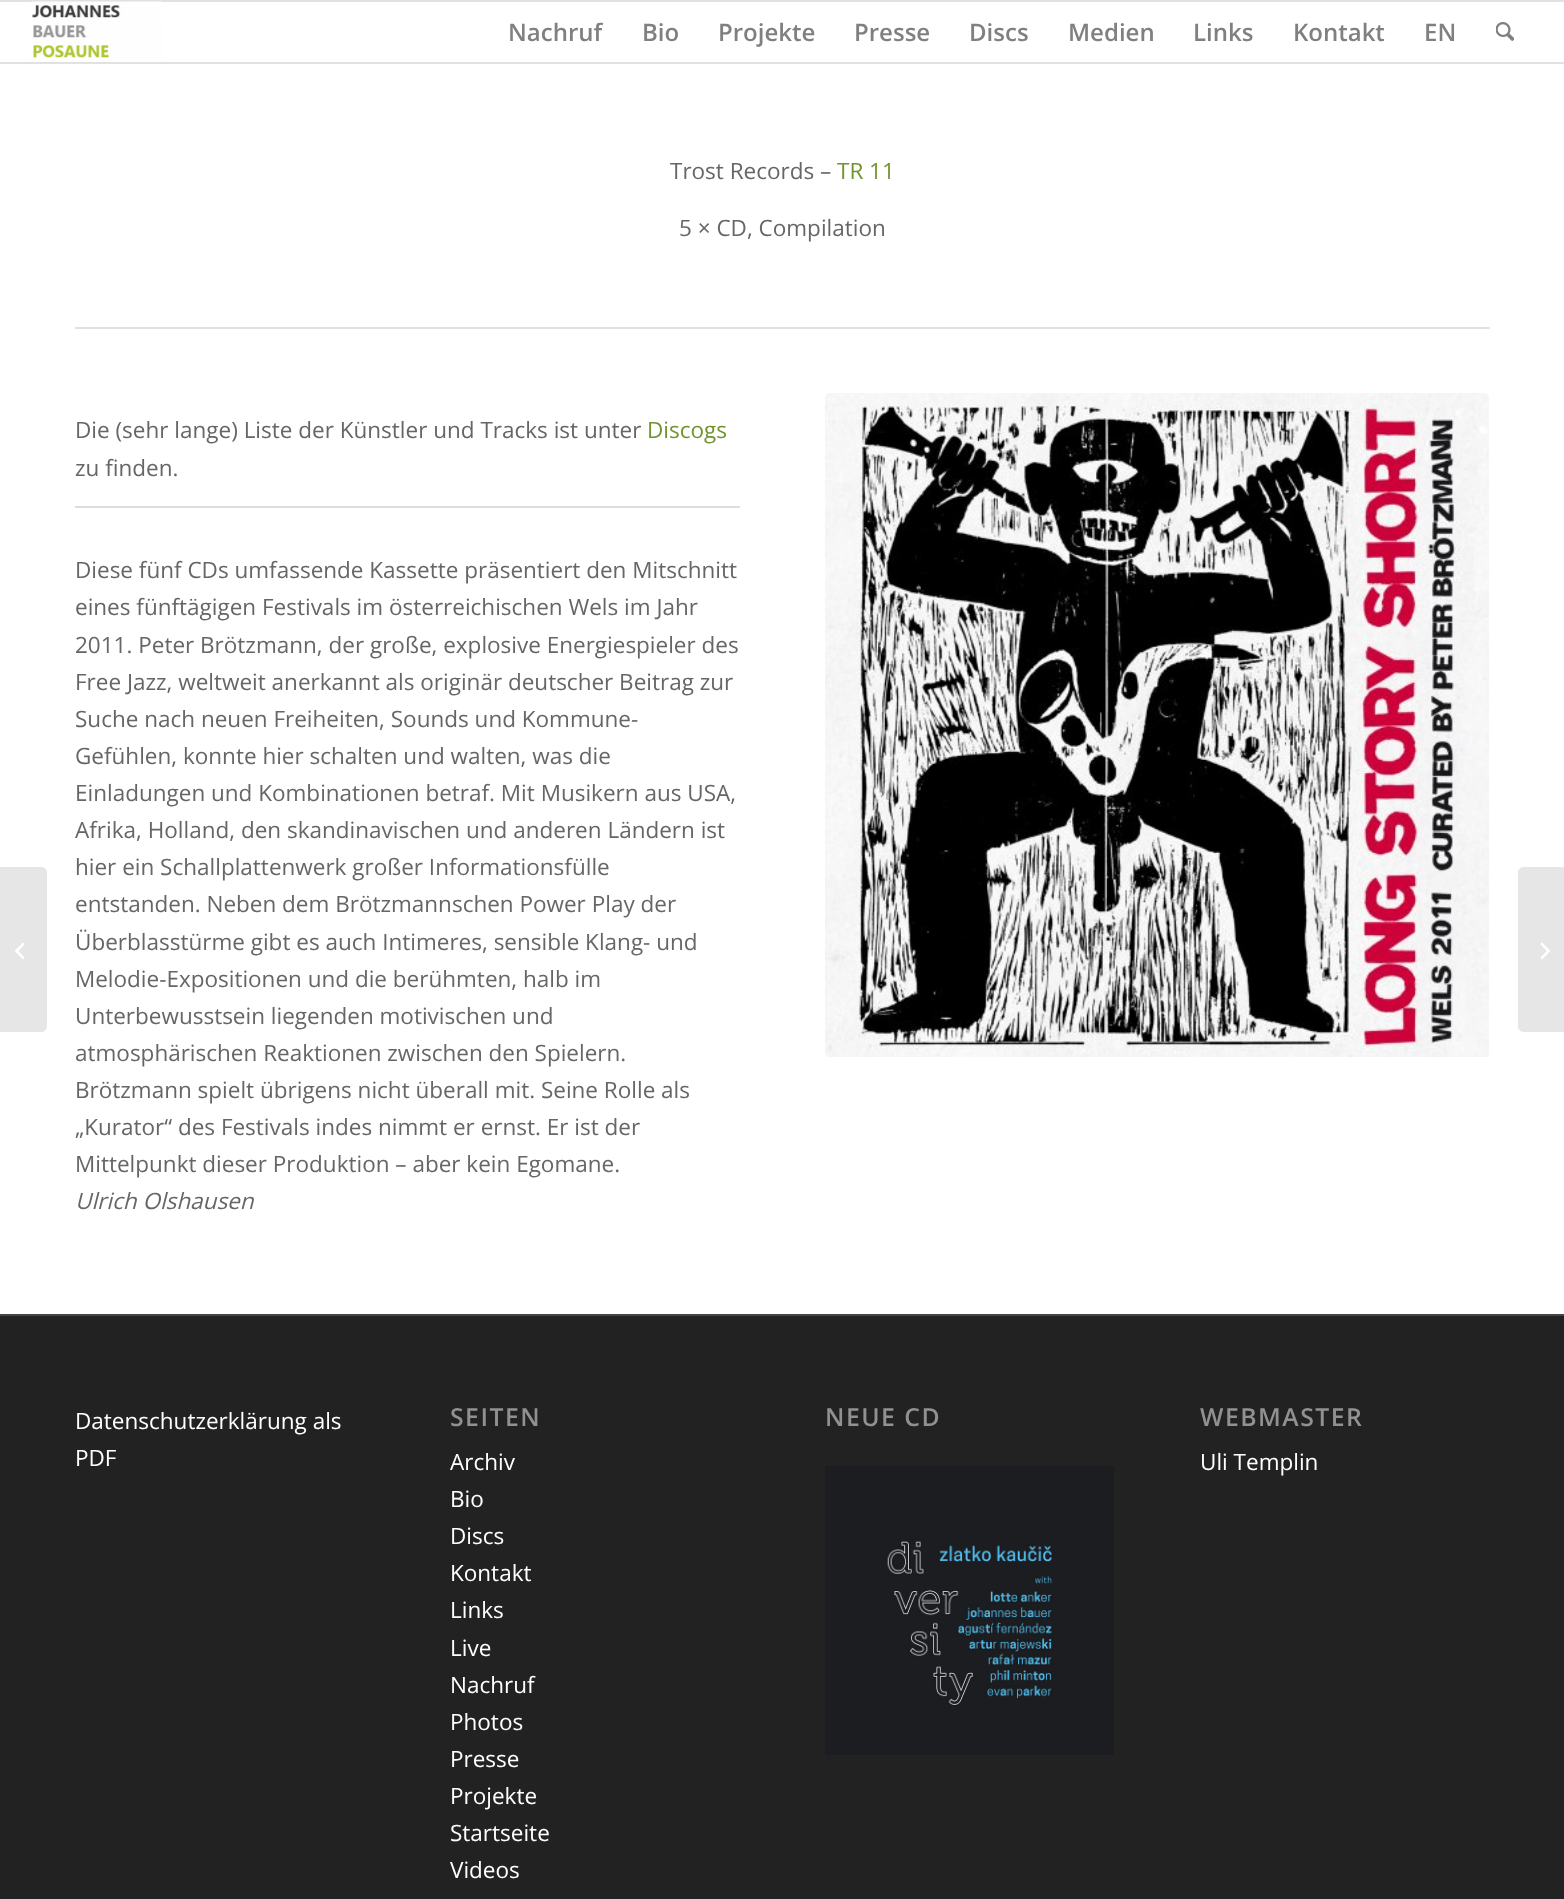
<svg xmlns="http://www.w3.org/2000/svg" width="1564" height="1899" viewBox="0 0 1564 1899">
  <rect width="100%" height="100%" fill="#ffffff"/>
  <rect x="0" y="0" width="1564" height="2" fill="#e1e1e1"/>
  <rect x="0" y="62" width="1564" height="2" fill="#e1e1e1"/>
  <image x="31" y="1" width="131" height="57" href="img1.png"/>
  <text x="508" y="41" font-family="Open Sans" font-size="24" font-weight="600" fill="#808080">Nachruf</text>
  <text x="642" y="41" font-family="Open Sans" font-size="24" font-weight="600" fill="#808080">Bio</text>
  <text x="718" y="41" font-family="Open Sans" font-size="24" font-weight="600" fill="#808080">Projekte</text>
  <text x="854" y="41" font-family="Open Sans" font-size="24" font-weight="600" fill="#808080">Presse</text>
  <text x="969" y="41" font-family="Open Sans" font-size="24" font-weight="600" fill="#808080">Discs</text>
  <text x="1068" y="41" font-family="Open Sans" font-size="24" font-weight="600" fill="#808080">Medien</text>
  <text x="1193" y="41" font-family="Open Sans" font-size="24" font-weight="600" fill="#808080">Links</text>
  <text x="1293" y="41" font-family="Open Sans" font-size="24" font-weight="600" fill="#808080">Kontakt</text>
  <text x="1424" y="41" font-family="Open Sans" font-size="24" font-weight="600" fill="#808080">EN</text>
  <image x="1496" y="22" width="18" height="19" href="img2.png"/>
  <path d="M0 867H41C44.5 867 47 869.5 47 873V1026C47 1029.5 44.5 1032 41 1032H0Z" fill="#e6e6e6"/>
  <image x="15" y="942" width="9" height="18" href="img3.png"/>
  <text x="670" y="179" font-family="Open Sans" font-size="22.5" fill="#666666">Trost Records –</text>
  <text x="837" y="179" font-family="Open Sans" font-size="22.5" fill="#719430">TR 11</text>
  <text x="679" y="236" font-family="Open Sans" font-size="22.5" fill="#666666">5 × CD, Compilation</text>
  <rect x="75" y="327" width="1415" height="2" fill="#e1e1e1"/>
  <text x="75" y="438" font-family="Open Sans" font-size="22.5" fill="#666666">Die (sehr lange) Liste der Künstler und Tracks ist unter</text>
  <text x="647" y="438" font-family="Open Sans" font-size="22.5" fill="#719430">Discogs</text>
  <text x="75" y="476" font-family="Open Sans" font-size="22.5" fill="#666666">zu finden.</text>
  <rect x="75" y="506" width="665" height="2" fill="#dddddd"/>
  <text x="75" y="578" font-family="Open Sans" font-size="22.5" fill="#666666">Diese fünf CDs umfassende Kassette präsentiert den Mitschnitt</text>
  <text x="75" y="615" font-family="Open Sans" font-size="22.5" fill="#666666">eines fünftägigen Festivals im österreichischen Wels im Jahr</text>
  <text x="75" y="653" font-family="Open Sans" font-size="22.5" fill="#666666">2011. Peter Brötzmann, der große, explosive Energiespieler des</text>
  <text x="75" y="690" font-family="Open Sans" font-size="22.5" fill="#666666">Free Jazz, weltweit anerkannt als originär deutscher Beitrag zur</text>
  <text x="75" y="727" font-family="Open Sans" font-size="22.5" fill="#666666">Suche nach neuen Freiheiten, Sounds und Kommune-</text>
  <text x="75" y="764" font-family="Open Sans" font-size="22.5" fill="#666666">Gefühlen, konnte hier schalten und walten, was die</text>
  <text x="75" y="801" font-family="Open Sans" font-size="22.5" fill="#666666">Einladungen und Kombinationen betraf. Mit Musikern aus USA,</text>
  <text x="75" y="838" font-family="Open Sans" font-size="22.5" fill="#666666">Afrika, Holland, den skandinavischen und anderen Ländern ist</text>
  <text x="75" y="875" font-family="Open Sans" font-size="22.5" fill="#666666">hier ein Schallplattenwerk großer Informationsfülle</text>
  <text x="75" y="912" font-family="Open Sans" font-size="22.5" fill="#666666">entstanden. Neben dem Brötzmannschen Power Play der</text>
  <text x="75" y="950" font-family="Open Sans" font-size="22.5" fill="#666666">Überblasstürme gibt es auch Intimeres, sensible Klang- und</text>
  <text x="75" y="987" font-family="Open Sans" font-size="22.5" fill="#666666">Melodie-Expositionen und die berühmten, halb im</text>
  <text x="75" y="1024" font-family="Open Sans" font-size="22.5" fill="#666666">Unterbewusstsein liegenden motivischen und</text>
  <text x="75" y="1061" font-family="Open Sans" font-size="22.5" fill="#666666">atmosphärischen Reaktionen zwischen den Spielern.</text>
  <text x="75" y="1098" font-family="Open Sans" font-size="22.5" fill="#666666">Brötzmann spielt übrigens nicht überall mit. Seine Rolle als</text>
  <text x="75" y="1135" font-family="Open Sans" font-size="22.5" fill="#666666">„Kurator“ des Festivals indes nimmt er ernst. Er ist der</text>
  <text x="75" y="1172" font-family="Open Sans" font-size="22.5" fill="#666666">Mittelpunkt dieser Produktion – aber kein Egomane.</text>
  <text x="75" y="1209" font-family="Open Sans" font-size="22.5" font-style="italic" fill="#666666">Ulrich Olshausen</text>
  <image x="825" y="393" width="664" height="664" href="img4.png"/>
  <rect x="0" y="1316" width="1564" height="583" fill="#222222"/>
  <rect x="0" y="1314" width="1564" height="2" fill="#444444"/>
  <text x="75" y="1429" font-family="Open Sans" font-size="22.5" fill="#ffffff">Datenschutzerklärung als</text>
  <text x="75" y="1466" font-family="Open Sans" font-size="22.5" fill="#ffffff">PDF</text>
  <text x="450" y="1426" font-family="Open Sans" font-size="24.75" font-weight="600" letter-spacing="1.5" fill="#919191">SEITEN</text>
  <text x="450" y="1470" font-family="Open Sans" font-size="22.5" fill="#ffffff">Archiv</text>
  <text x="450" y="1507" font-family="Open Sans" font-size="22.5" fill="#ffffff">Bio</text>
  <text x="450" y="1544" font-family="Open Sans" font-size="22.5" fill="#ffffff">Discs</text>
  <text x="450" y="1581" font-family="Open Sans" font-size="22.5" fill="#ffffff">Kontakt</text>
  <text x="450" y="1618" font-family="Open Sans" font-size="22.5" fill="#ffffff">Links</text>
  <text x="450" y="1656" font-family="Open Sans" font-size="22.5" fill="#ffffff">Live</text>
  <text x="450" y="1693" font-family="Open Sans" font-size="22.5" fill="#ffffff">Nachruf</text>
  <text x="450" y="1730" font-family="Open Sans" font-size="22.5" fill="#ffffff">Photos</text>
  <text x="450" y="1767" font-family="Open Sans" font-size="22.5" fill="#ffffff">Presse</text>
  <text x="450" y="1804" font-family="Open Sans" font-size="22.5" fill="#ffffff">Projekte</text>
  <text x="450" y="1841" font-family="Open Sans" font-size="22.5" fill="#ffffff">Startseite</text>
  <text x="450" y="1878" font-family="Open Sans" font-size="22.5" fill="#ffffff">Videos</text>
  <text x="825" y="1426" font-family="Open Sans" font-size="24.75" font-weight="600" letter-spacing="1.5" fill="#919191">NEUE CD</text>
  <image x="825" y="1466" width="289" height="289" href="img5.png"/>
  <text x="1200" y="1426" font-family="Open Sans" font-size="24.75" font-weight="600" letter-spacing="1.5" fill="#919191">WEBMASTER</text>
  <text x="1200" y="1470" font-family="Open Sans" font-size="22.5" fill="#ffffff">Uli Templin</text>
  <path d="M1524 867H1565V1032H1524C1520.5 1032 1518 1029.5 1518 1026V873C1518 869.5 1520.5 867 1524 867Z" fill="#e6e6e6"/>
  <image x="1541" y="942" width="9" height="18" href="img6.png"/>
</svg>
